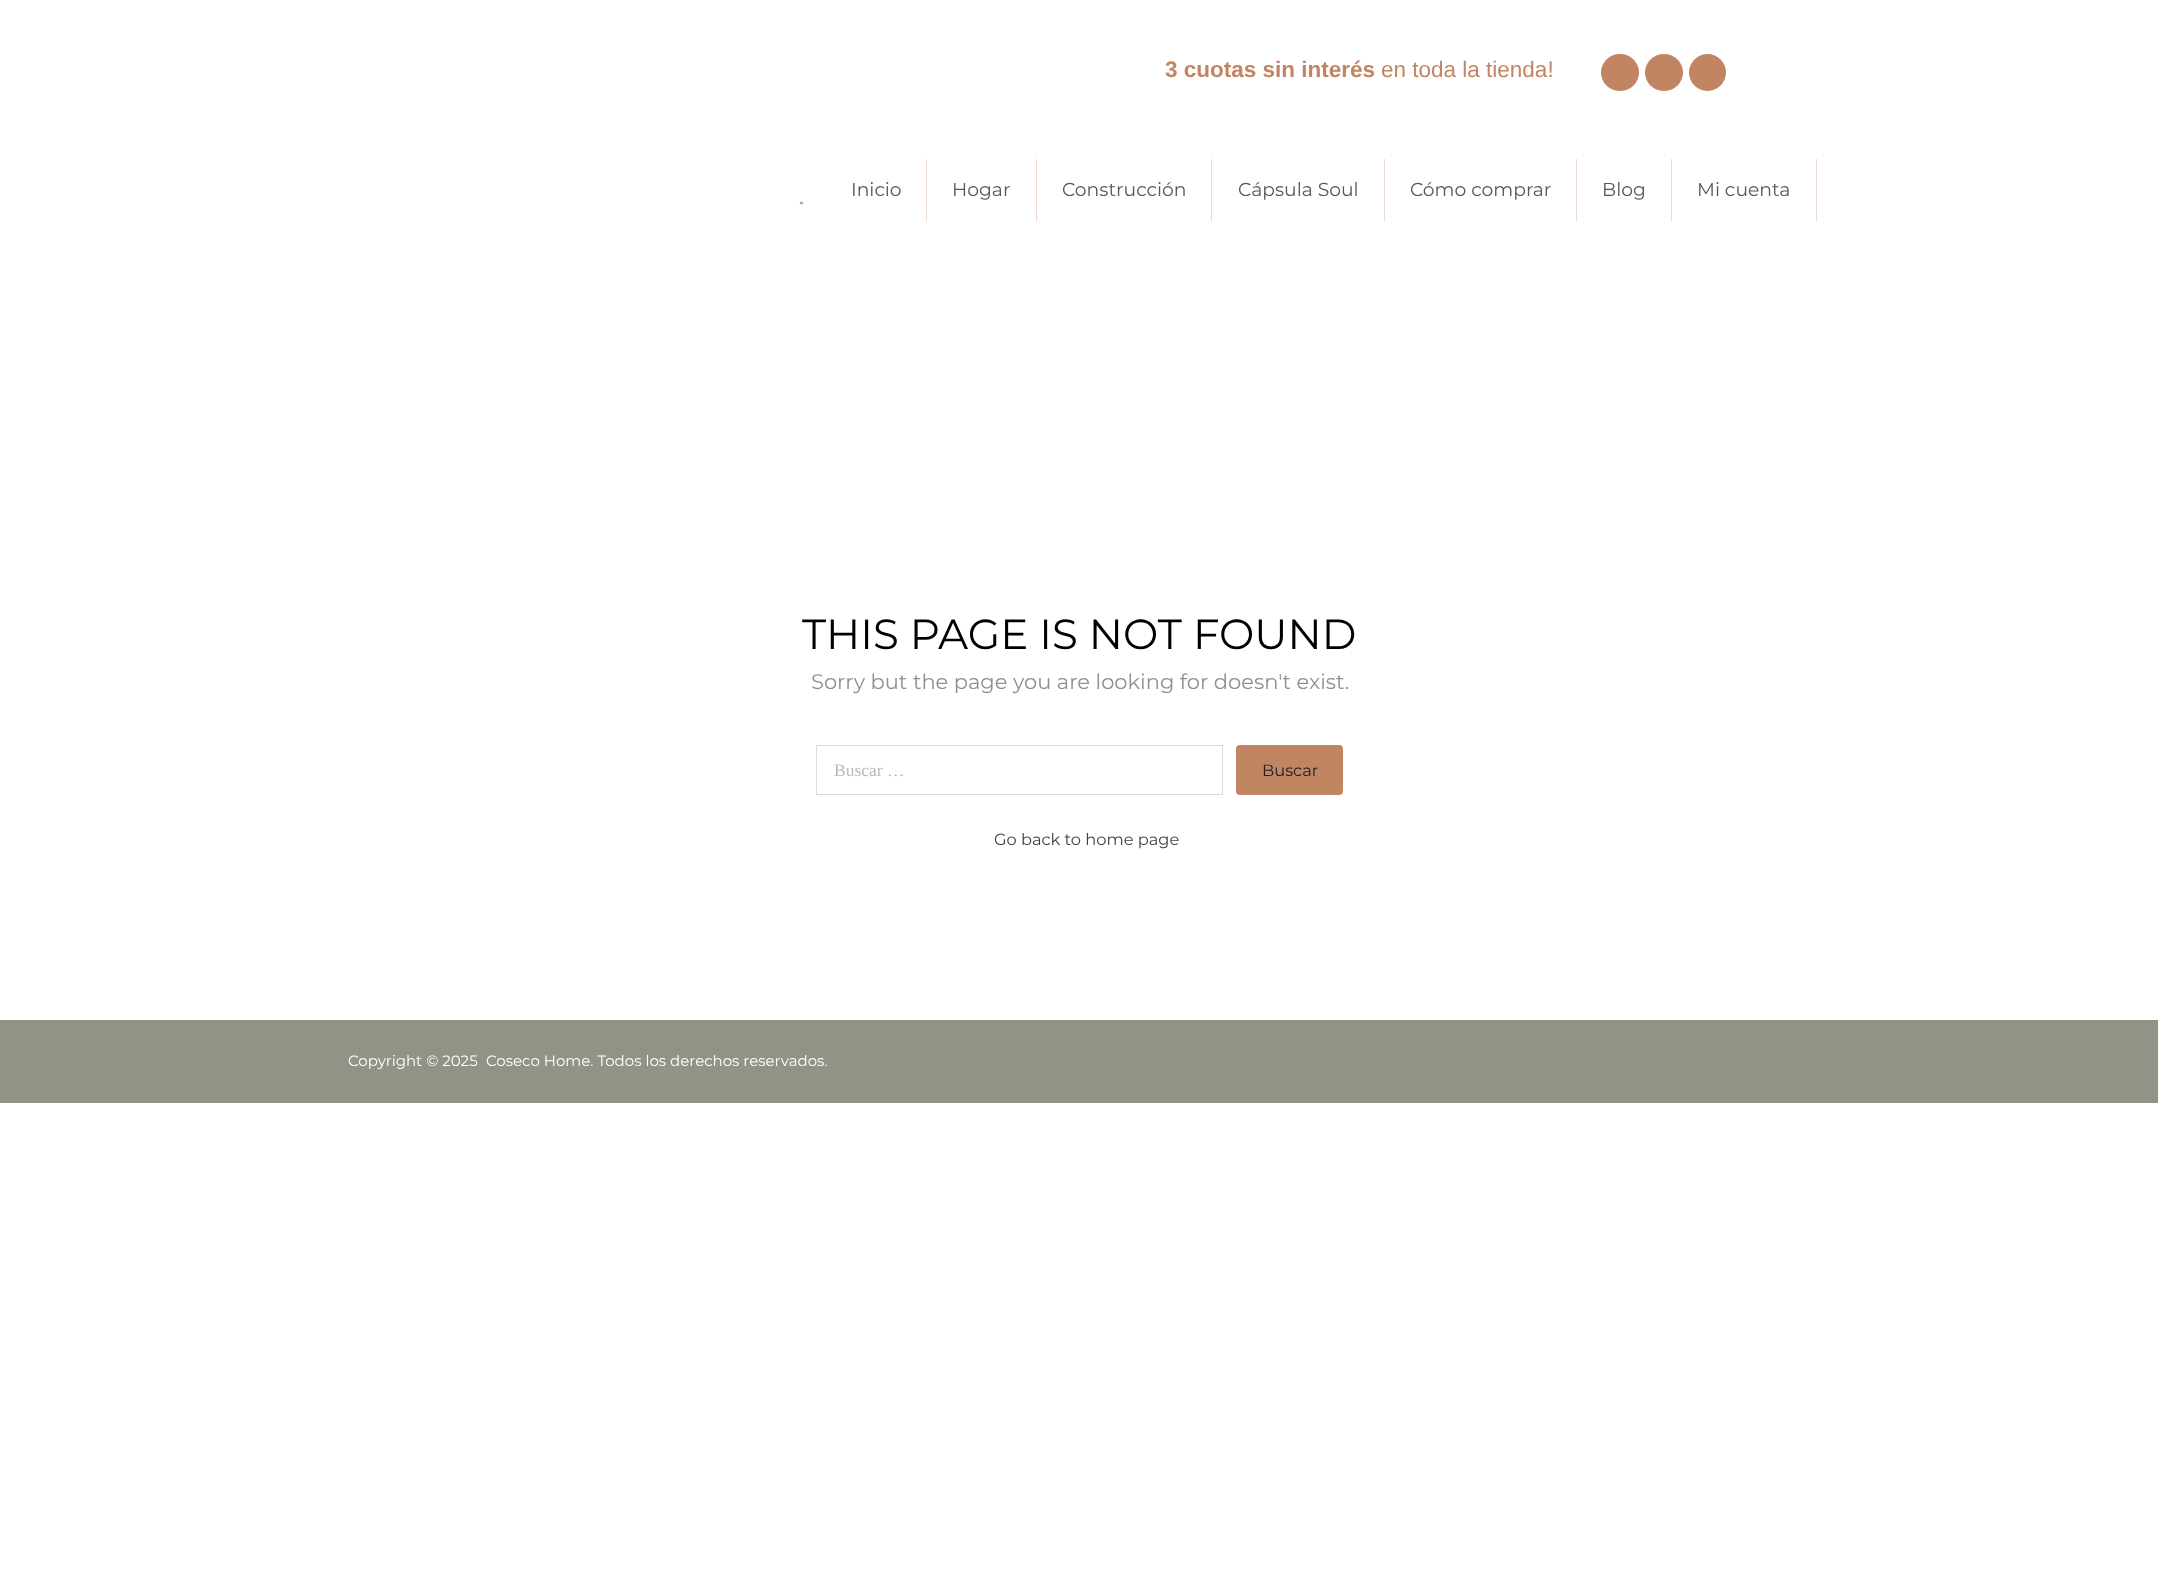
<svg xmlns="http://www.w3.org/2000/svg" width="2158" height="1594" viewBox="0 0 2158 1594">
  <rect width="100%" height="100%" fill="#ffffff"/>
  <text x="1165" y="77" font-family="Liberation Sans" font-size="22.5" font-weight="bold" fill="#c18562">3 cuotas sin interés</text>
  <text x="1381" y="77" font-family="Liberation Sans" font-size="22.5" fill="#c18562">en toda la tienda!</text>
  <rect x="1601" y="54" width="38" height="37" rx="18.5" fill="#c18562"/>
  <rect x="1645" y="54" width="38" height="37" rx="18.5" fill="#c18562"/>
  <circle cx="1707.5" cy="72.5" r="18.5" fill="#c18562"/>
  <rect x="926" y="159" width="1" height="62" fill="#ecd9ce"/>
  <text x="851" y="196" font-family="Montserrat" font-size="18.75" font-weight="100" fill="#54595f">Inicio</text>
  <rect x="1036" y="159" width="1" height="62" fill="#ecd9ce"/>
  <text x="952" y="196" font-family="Montserrat" font-size="18.75" font-weight="100" fill="#54595f">Hogar</text>
  <rect x="1211" y="159" width="1" height="62" fill="#ecd9ce"/>
  <text x="1062" y="196" font-family="Montserrat" font-size="18.75" font-weight="100" fill="#54595f">Construcción</text>
  <rect x="1384" y="159" width="1" height="62" fill="#ecd9ce"/>
  <text x="1238" y="196" font-family="Montserrat" font-size="18.75" font-weight="100" fill="#54595f">Cápsula Soul</text>
  <rect x="1576" y="159" width="1" height="62" fill="#ecd9ce"/>
  <text x="1410" y="196" font-family="Montserrat" font-size="18.75" font-weight="100" fill="#54595f">Cómo comprar</text>
  <rect x="1671" y="159" width="1" height="62" fill="#ecd9ce"/>
  <text x="1602" y="196" font-family="Montserrat" font-size="18.75" font-weight="100" fill="#54595f">Blog</text>
  <rect x="1816" y="159" width="1" height="62" fill="#ecd9ce"/>
  <text x="1697" y="196" font-family="Montserrat" font-size="18.75" font-weight="100" fill="#54595f">Mi cuenta</text>
  <path d="M801 203H802" fill="none" stroke="#9eadb6" stroke-width="2.4" stroke-linecap="round"/>
  <text x="802" y="649" font-family="Montserrat" font-size="42" font-weight="100" fill="#000000">THIS PAGE IS NOT FOUND</text>
  <text x="811" y="689" font-family="Montserrat" font-size="21" font-weight="100" fill="#909090">Sorry but the page you are looking for doesn't exist.</text>
  <rect x="816.5" y="745.5" width="406" height="49" fill="none" stroke="#dbdbdb"/>
  <text x="834" y="776" font-family="Liberation Serif" font-size="17.5" fill="#b9b9b9">Buscar …</text>
  <rect x="1236" y="745" width="107" height="50" rx="4" fill="#c18562"/>
  <text x="1262" y="776" font-family="Montserrat" font-size="16.25" font-weight="100" fill="#212121">Buscar</text>
  <text x="994" y="845" font-family="Montserrat" font-size="16.25" font-weight="100" fill="#404040">Go back to home page</text>
  <rect x="0" y="1020" width="2158" height="83" fill="#919386"/>
  <text x="348" y="1066" font-family="Montserrat" font-size="15" font-weight="100" fill="#ffffff">Copyright © 2025</text>
  <text x="486" y="1066" font-family="Montserrat" font-size="15" font-weight="100" fill="#ffffff">Coseco Home. Todos los derechos reservados.</text>
</svg>
